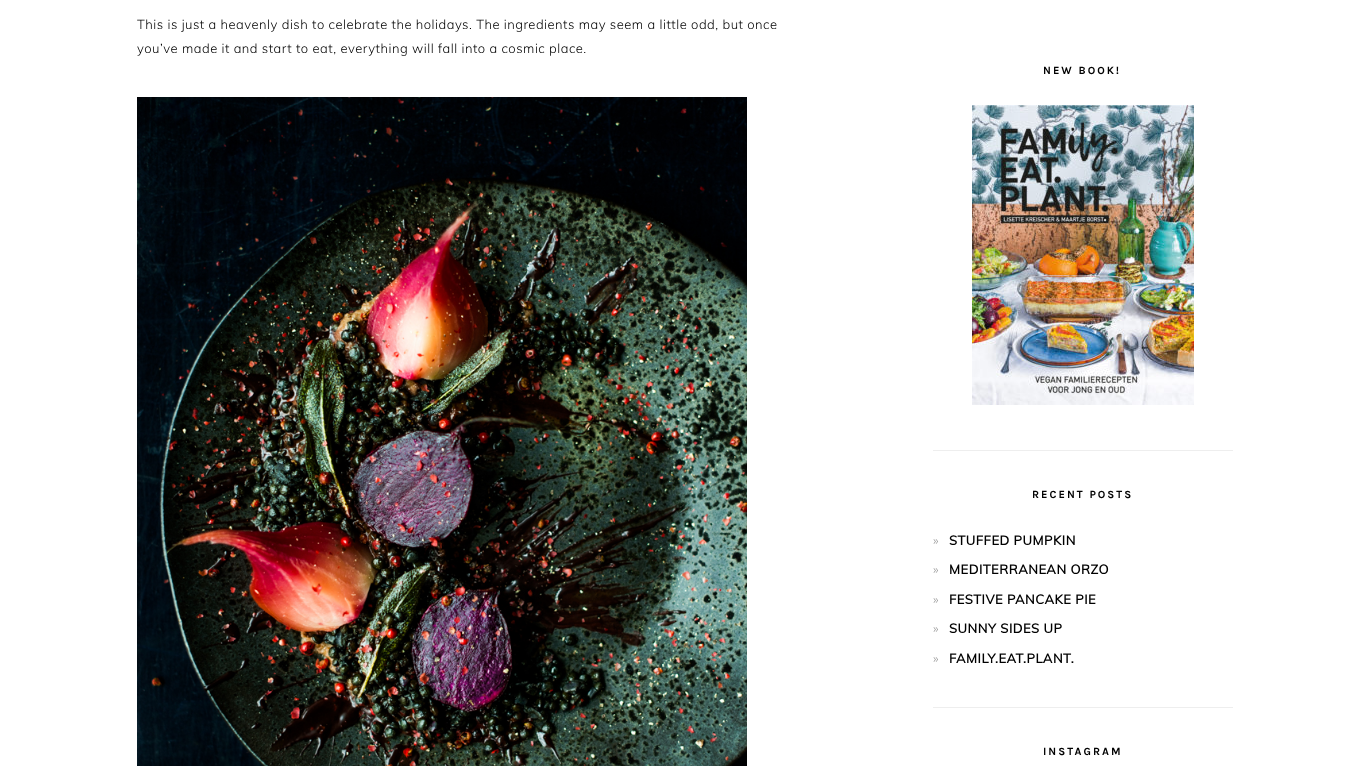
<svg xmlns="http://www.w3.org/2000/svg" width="1369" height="766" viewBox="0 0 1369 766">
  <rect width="100%" height="100%" fill="#ffffff"/>
  <text x="137" y="29" font-family="Muli" font-size="13" font-weight="300" letter-spacing="0.5" fill="#010101">This is just a heavenly dish to celebrate the holidays. The ingredients may seem a little odd, but once</text>
  <text x="137" y="53" font-family="Muli" font-size="13" font-weight="300" letter-spacing="0.5" fill="#010101">you’ve made it and start to eat, everything will fall into a cosmic place.</text>
  <image x="137" y="97" width="610" height="669" href="img1.png"/>
  <rect x="933" y="450" width="300" height="1" fill="#eeeeee"/>
  <text x="1043" y="74" font-family="Karla" font-size="11" font-weight="bold" letter-spacing="2" fill="#010101">NEW BOOK!</text>
  <image x="972" y="105" width="222" height="300" href="img2.png"/>
  <rect x="933" y="707" width="300" height="1" fill="#eeeeee"/>
  <text x="1032" y="498" font-family="Karla" font-size="11" font-weight="bold" letter-spacing="2" fill="#010101">RECENT POSTS</text>
  <text x="933" y="545" font-family="Muli" font-size="13" font-weight="300" letter-spacing="0.5" fill="#999999">»</text>
  <text x="949" y="545" font-family="Muli" font-size="13" font-weight="bold" letter-spacing="0.5" fill="#010101">STUFFED PUMPKIN</text>
  <text x="933" y="574" font-family="Muli" font-size="13" font-weight="300" letter-spacing="0.5" fill="#999999">»</text>
  <text x="949" y="574" font-family="Muli" font-size="13" font-weight="bold" letter-spacing="0.5" fill="#010101">MEDITERRANEAN ORZO</text>
  <text x="933" y="604" font-family="Muli" font-size="13" font-weight="300" letter-spacing="0.5" fill="#999999">»</text>
  <text x="949" y="604" font-family="Muli" font-size="13" font-weight="bold" letter-spacing="0.5" fill="#010101">FESTIVE PANCAKE PIE</text>
  <text x="933" y="633" font-family="Muli" font-size="13" font-weight="300" letter-spacing="0.5" fill="#999999">»</text>
  <text x="949" y="633" font-family="Muli" font-size="13" font-weight="bold" letter-spacing="0.5" fill="#010101">SUNNY SIDES UP</text>
  <text x="933" y="663" font-family="Muli" font-size="13" font-weight="300" letter-spacing="0.5" fill="#999999">»</text>
  <text x="949" y="663" font-family="Muli" font-size="13" font-weight="bold" letter-spacing="0.5" fill="#010101">FAMILY.EAT.PLANT.</text>
  <text x="1043" y="755" font-family="Karla" font-size="11" font-weight="bold" letter-spacing="2" fill="#010101">INSTAGRAM</text>
</svg>
